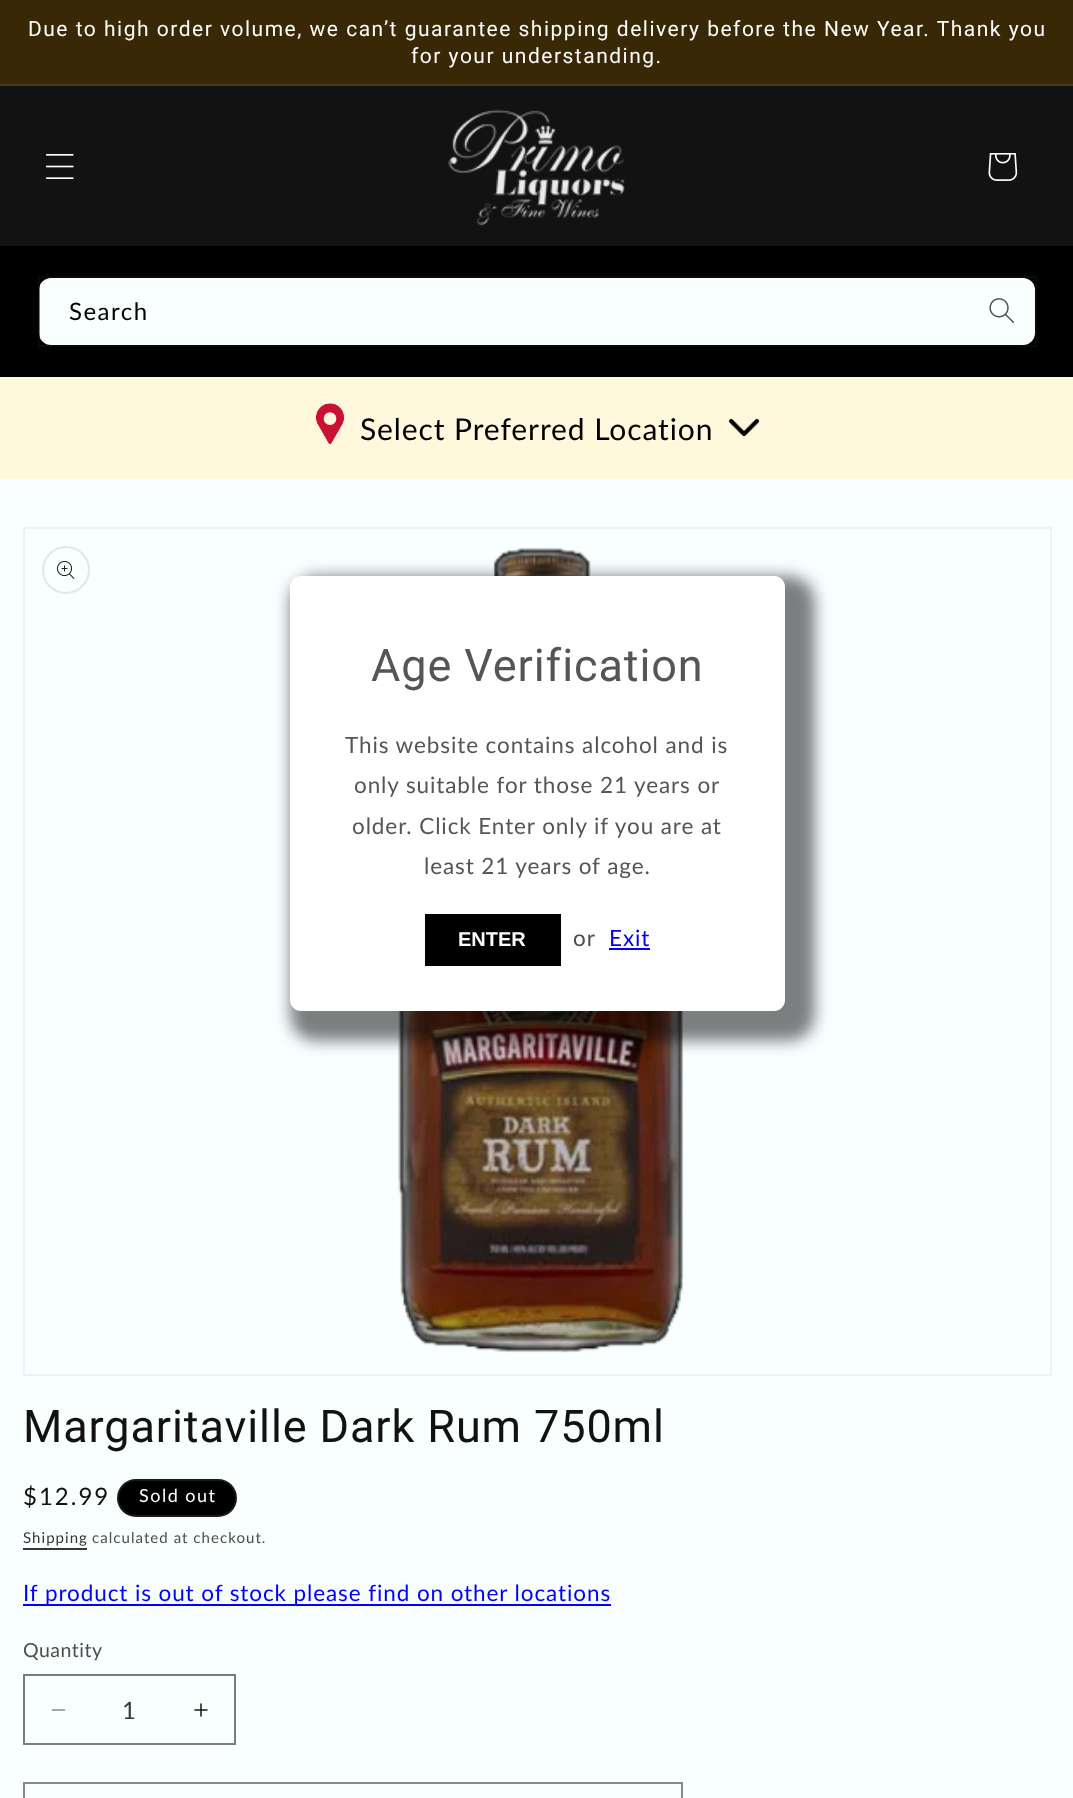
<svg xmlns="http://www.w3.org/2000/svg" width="1073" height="1798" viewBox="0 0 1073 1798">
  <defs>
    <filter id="blur1" x="-50%" y="-200%" width="200%" height="500%"><feGaussianBlur stdDeviation="7.5"/></filter>
  </defs>
  <rect width="100%" height="100%" fill="#f9ffff"/>
  <rect x="0" y="0" width="1073" height="84" fill="#392806"/>
  <rect x="0" y="84" width="1073" height="2" fill="#49391a"/>
  <text x="28" y="36" font-family="Roboto" font-size="21" letter-spacing="1.5" fill="#fffcfc">Due to high order volume, we can’t guarantee shipping delivery before the New Year. Thank you</text>
  <text x="411" y="63" font-family="Roboto" font-size="21" letter-spacing="1.5" fill="#fffcfc">for your understanding.</text>
  <rect x="0" y="86" width="1073" height="160" fill="#121212"/>
  <image x="45" y="154" width="29" height="25" href="img1.png"/>
  <image x="448" y="109" width="177" height="117" href="img2.png"/>
  <image x="988" y="153" width="30" height="28" href="img3.png"/>
  <rect x="0" y="246" width="1073" height="131" fill="#000000"/>
  <rect x="39" y="278" width="996" height="67" rx="12" fill="#f9ffff"/>
  <image x="989" y="298" width="26" height="26" href="img4.png"/>
  <rect x="39" y="277" width="997" height="69" fill="none" stroke="#121212" stroke-opacity="0.55" stroke-width="2"/>
  <text x="69" y="320" font-family="Lato" font-size="24" letter-spacing="1.5" fill="#000000">Search</text>
  <rect x="0" y="377" width="1073" height="102" fill="#fff8dc"/>
  <image x="315" y="403" width="30" height="41" href="img5.png"/>
  <text x="360" y="440" font-family="Lato" font-size="30" letter-spacing="0.9" fill="#000000">Select Preferred Location</text>
  <image x="729" y="418" width="30" height="19" href="img6.png"/>
  <rect x="24" y="528" width="1027" height="847" fill="none" stroke="#edf3f3" stroke-width="2"/>
  <image x="398" y="548" width="286" height="805" href="img8.png"/>
  <rect x="290" y="576" width="525" height="465" rx="26" fill="#000000" fill-opacity="0.5" filter="url(#blur1)"/>
  <rect x="290" y="576" width="495" height="435" rx="11" fill="#ffffff"/>
  <text x="371" y="681" font-family="Roboto" font-size="45" letter-spacing="0.9" fill="#555555">Age Verification</text>
  <text x="345" y="753" font-family="Lato" font-size="22.5" letter-spacing="0.9" fill="#555555">This website contains alcohol and is</text>
  <text x="354" y="793" font-family="Lato" font-size="22.5" letter-spacing="0.9" fill="#555555">only suitable for those 21 years or</text>
  <text x="352" y="834" font-family="Lato" font-size="22.5" letter-spacing="0.9" fill="#555555">older. Click Enter only if you are at</text>
  <text x="424" y="874" font-family="Lato" font-size="22.5" letter-spacing="0.9" fill="#555555">least 21 years of age.</text>
  <rect x="425" y="914" width="136" height="52" fill="#000000"/>
  <text x="458" y="946" font-family="Liberation Sans" font-size="20" font-weight="bold" fill="#fffcfc">ENTER</text>
  <text x="573" y="946" font-family="Lato" font-size="22.5" letter-spacing="0.9" fill="#4c4d4d">or</text>
  <text x="609" y="946" font-family="Lato" font-size="22.5" letter-spacing="0.9" fill="#0000ee">Exit</text>
  <rect x="609" y="948" width="41" height="2" fill="#0000ee"/>
  <circle cx="66" cy="570" r="23" fill="none" stroke="#e2e7e7" stroke-width="2"/>
  <image x="57" y="561" width="18" height="18" href="img7.png"/>
  <text x="23" y="1442" font-family="Roboto" font-size="45" letter-spacing="0.9" fill="#121212">Margaritaville Dark Rum 750ml</text>
  <text x="23" y="1505" font-family="Lato" font-size="24" letter-spacing="2" fill="#121212">$12.99</text>
  <rect x="117" y="1479" width="120" height="38" rx="19" fill="#000000"/>
  <rect x="118" y="1480" width="118" height="36" rx="18" fill="none" stroke="#fffcfc" stroke-opacity="0.1" stroke-width="2"/>
  <text x="139" y="1502" font-family="Lato" font-size="18" letter-spacing="1.5" fill="#fffcfc">Sold out</text>
  <text x="23" y="1543" font-family="Lato" font-size="15" letter-spacing="1.05" fill="#353636">Shipping</text>
  <rect x="23" y="1548" width="64" height="2" fill="#353636"/>
  <text x="92" y="1543" font-family="Lato" font-size="15" letter-spacing="1.05" fill="#4c4d4d">calculated at checkout.</text>
  <rect x="23" y="1604" width="588" height="2" fill="#0000ff"/>
  <text x="23" y="1601" font-family="Lato" font-size="22.5" letter-spacing="0.9" fill="#0000ff">If product is out of stock please find on other locations</text>
  <text x="23" y="1657" font-family="Lato" font-size="19.5" letter-spacing="0.5" fill="#4c4d4d">Quantity</text>
  <image x="51" y="1709" width="15" height="2" href="img9.png"/>
  <image x="194" y="1703" width="14" height="14" href="img10.png"/>
  <rect x="24" y="1675" width="211" height="69" fill="none" stroke="#7a7d7d" stroke-width="2"/>
  <text x="122" y="1719" font-family="Lato" font-size="24" fill="#353636">1</text>
  <rect x="24" y="1783" width="658" height="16" fill="none" stroke="#868989" stroke-width="2"/>
</svg>
